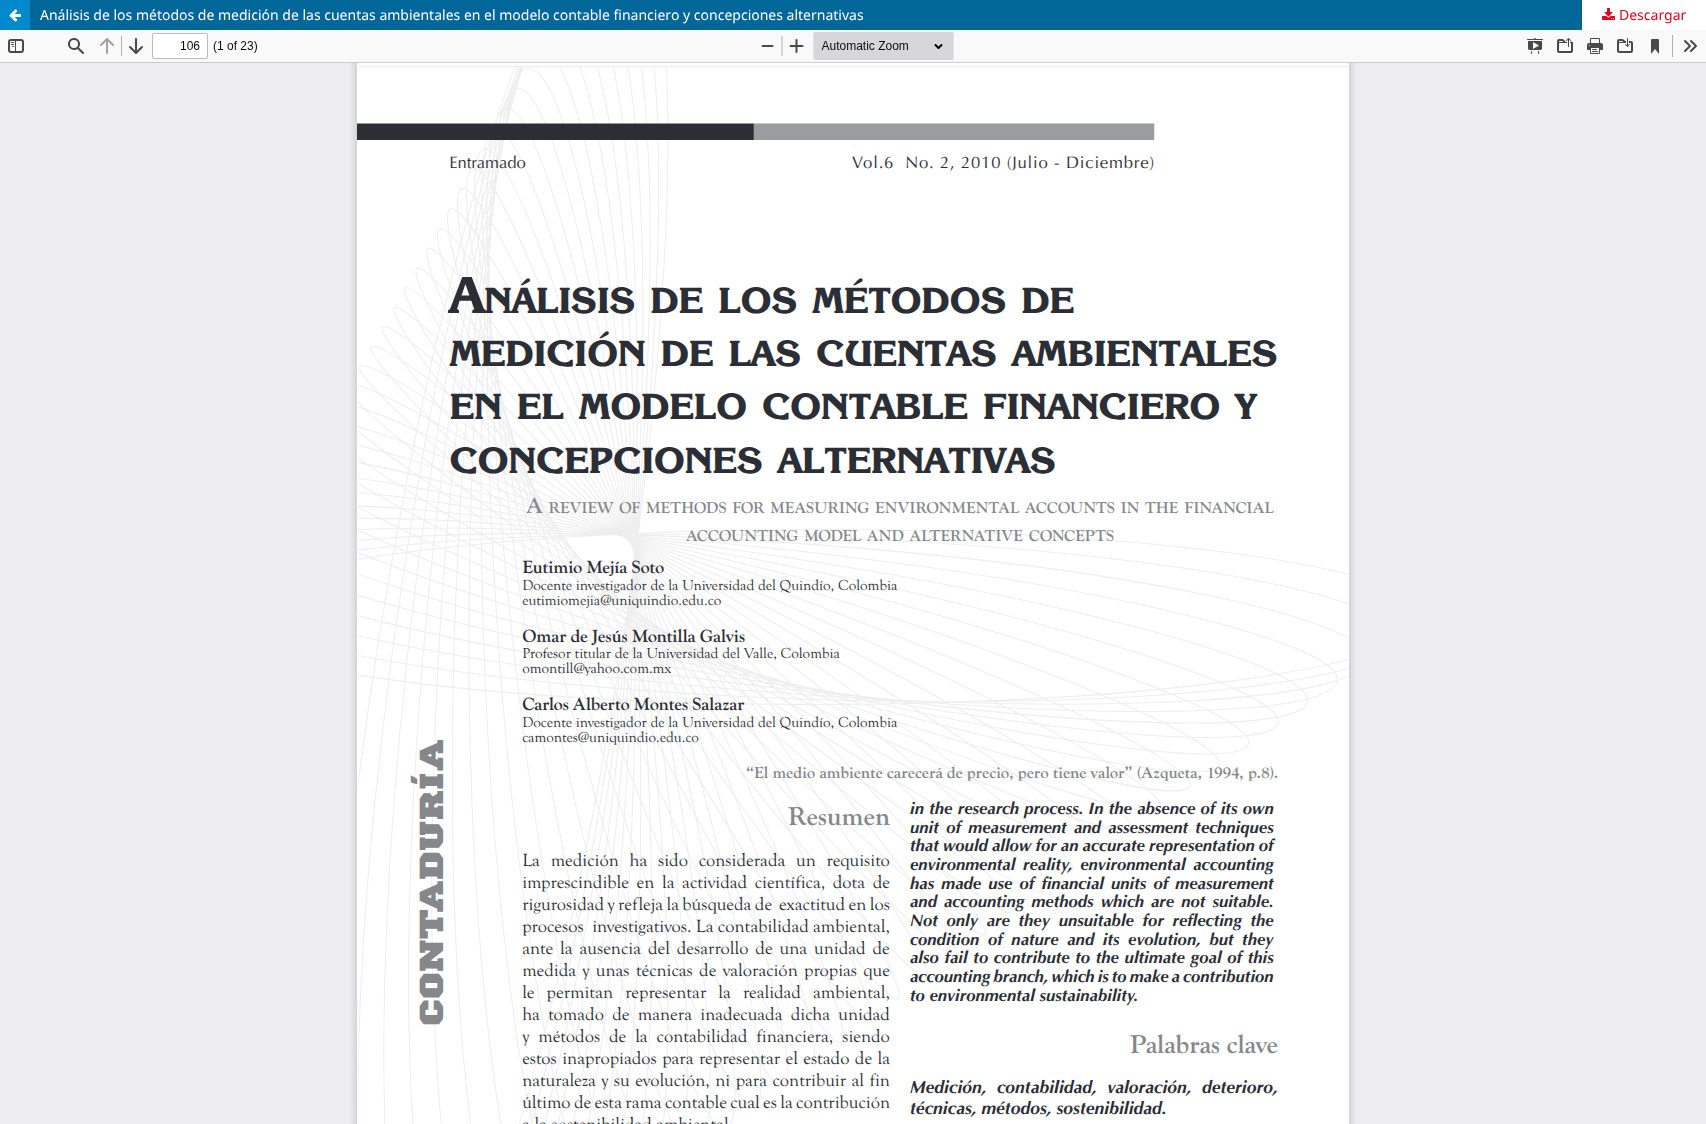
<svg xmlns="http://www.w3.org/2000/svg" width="1706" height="1124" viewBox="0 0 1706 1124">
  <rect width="100%" height="100%" fill="#ffffff"/>
  <rect x="30" y="0" width="1552" height="30" fill="#006798"/>
  <rect x="0" y="0" width="30" height="30" fill="#008acb"/>
  <image x="9" y="9" width="12" height="13" href="img1.png"/>
  <text x="40" y="20" font-family="Noto Sans" font-size="14" fill="#ffffff">Análisis de los métodos de medición de las cuentas ambientales en el modelo contable financiero y concepciones alternativas</text>
  <image x="1602" y="8" width="13" height="12" href="img2.png"/>
  <text x="1619" y="20" font-family="Noto Sans" font-size="14" fill="#e1011b">Descargar</text>
  <image x="0" y="30" width="1706" height="1094" href="img3.png"/>
</svg>
